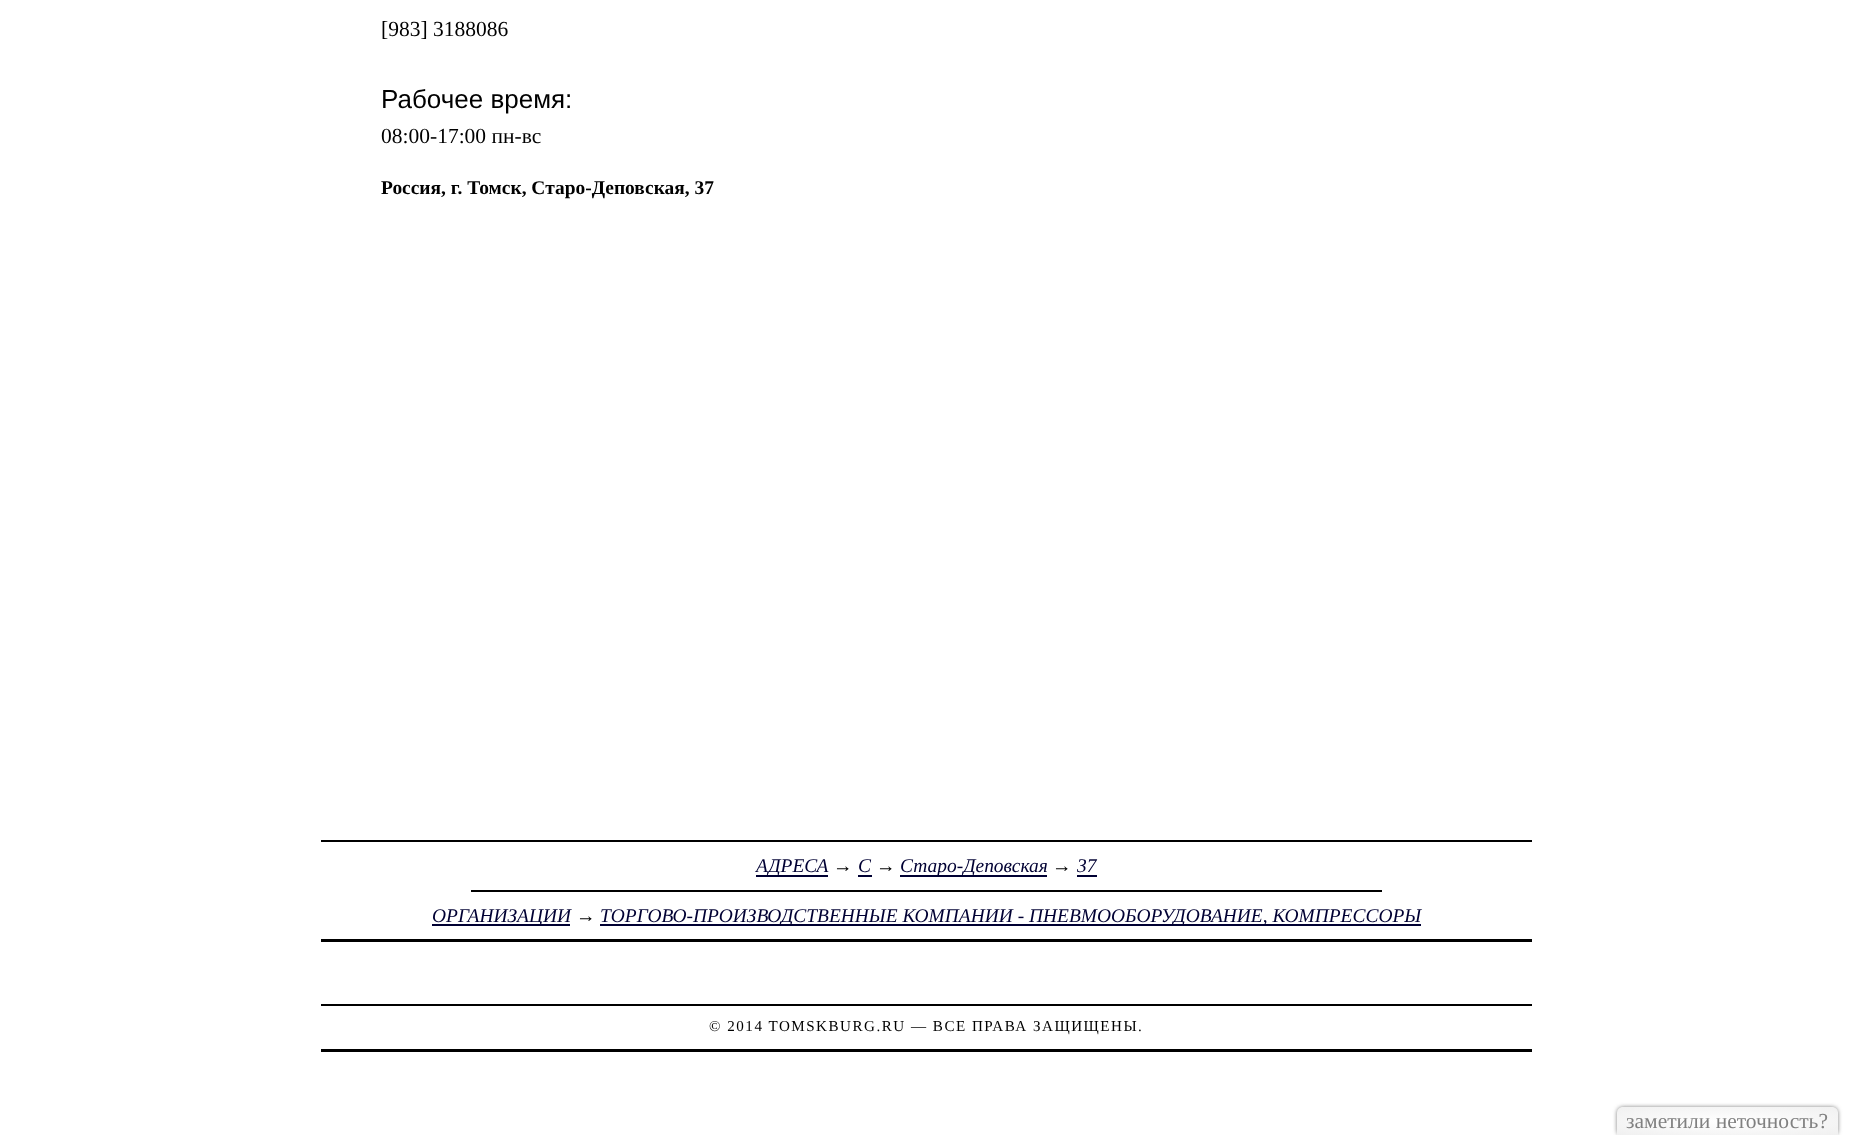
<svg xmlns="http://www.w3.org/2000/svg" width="1852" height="1135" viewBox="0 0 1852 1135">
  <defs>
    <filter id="blur1" x="-50%" y="-200%" width="200%" height="500%"><feGaussianBlur stdDeviation="2"/></filter>
    <radialGradient id="g1" gradientUnits="userSpaceOnUse" cx="0" cy="0" r="1" gradientTransform="matrix(156 0 0 20 1727 1121)"><stop offset="0" stop-color="#ffffff"/><stop offset="1" stop-color="#f0f0f0"/></radialGradient>
  </defs>
  <rect width="100%" height="100%" fill="#ffffff"/>
  <text x="381" y="36" font-family="Liberation Serif" font-size="21.5" fill="#000000">[983] 3188086</text>
  <text x="381" y="108" font-family="Liberation Sans" font-size="26" fill="#000000">Рабочее время:</text>
  <text x="381" y="143" font-family="Liberation Serif" font-size="21.5" fill="#000000">08:00-17:00 пн-вс</text>
  <text x="381" y="194" font-family="Liberation Serif" font-size="19.45" font-weight="bold" fill="#000000">Россия, г. Томск, Старо-Деповская, 37</text>
  <rect x="321" y="840" width="1211" height="2" fill="#000000"/>
  <rect x="321" y="939" width="1211" height="3" fill="#000000"/>
  <rect x="756" y="875" width="72" height="2" fill="#000033"/>
  <text x="756" y="872" font-family="Liberation Serif" font-size="19.45" font-style="italic" fill="#000033">АДРЕСА</text>
  <text x="833" y="872" font-family="Liberation Serif" font-size="19.45" font-style="italic" fill="#000000">→</text>
  <text x="858" y="872" font-family="Liberation Serif" font-size="19.45" font-style="italic" fill="#000033">С</text>
  <rect x="858" y="875" width="14" height="2" fill="#000033"/>
  <text x="876" y="872" font-family="Liberation Serif" font-size="19.45" font-style="italic" fill="#000000">→</text>
  <rect x="900" y="875" width="147" height="2" fill="#000033"/>
  <text x="900" y="872" font-family="Liberation Serif" font-size="19.45" font-style="italic" fill="#000033">Старо-Деповская</text>
  <text x="1052" y="872" font-family="Liberation Serif" font-size="19.45" font-style="italic" fill="#000000">→</text>
  <text x="1077" y="872" font-family="Liberation Serif" font-size="19.45" font-style="italic" fill="#000033">37</text>
  <rect x="1077" y="875" width="20" height="2" fill="#000033"/>
  <rect x="471" y="890" width="911" height="2" fill="#000000"/>
  <rect x="432" y="924" width="138" height="2" fill="#000033"/>
  <text x="432" y="922" font-family="Liberation Serif" font-size="19.45" font-style="italic" fill="#000033">ОРГАНИЗАЦИИ</text>
  <text x="576" y="922" font-family="Liberation Serif" font-size="19.45" font-style="italic" fill="#000000">→</text>
  <rect x="600" y="924" width="821" height="2" fill="#000033"/>
  <text x="600" y="922" font-family="Liberation Serif" font-size="19.45" font-style="italic" fill="#000033">ТОРГОВО-ПРОИЗВОДСТВЕННЫЕ КОМПАНИИ - ПНЕВМООБОРУДОВАНИЕ, КОМПРЕССОРЫ</text>
  <rect x="321" y="1004" width="1211" height="2" fill="#000000"/>
  <rect x="321" y="1049" width="1211" height="3" fill="#000000"/>
  <text x="709" y="1031" font-family="Liberation Serif" font-size="15.1" letter-spacing="1.5" fill="#000000">© 2014 TOMSKBURG.RU — ВСЕ ПРАВА ЗАЩИЩЕНЫ.</text>
  <rect x="1617" y="1107" width="221" height="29" rx="6" fill="#808080" filter="url(#blur1)"/>
  <path d="M1623 1107H1832C1835.5 1107 1838 1109.5 1838 1113V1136H1617V1113C1617 1109.5 1619.5 1107 1623 1107Z" fill="url(#g1)"/>
  <text x="1626" y="1128" font-family="Liberation Serif" font-size="21.5" fill="#808080">заметили неточность?</text>
</svg>
